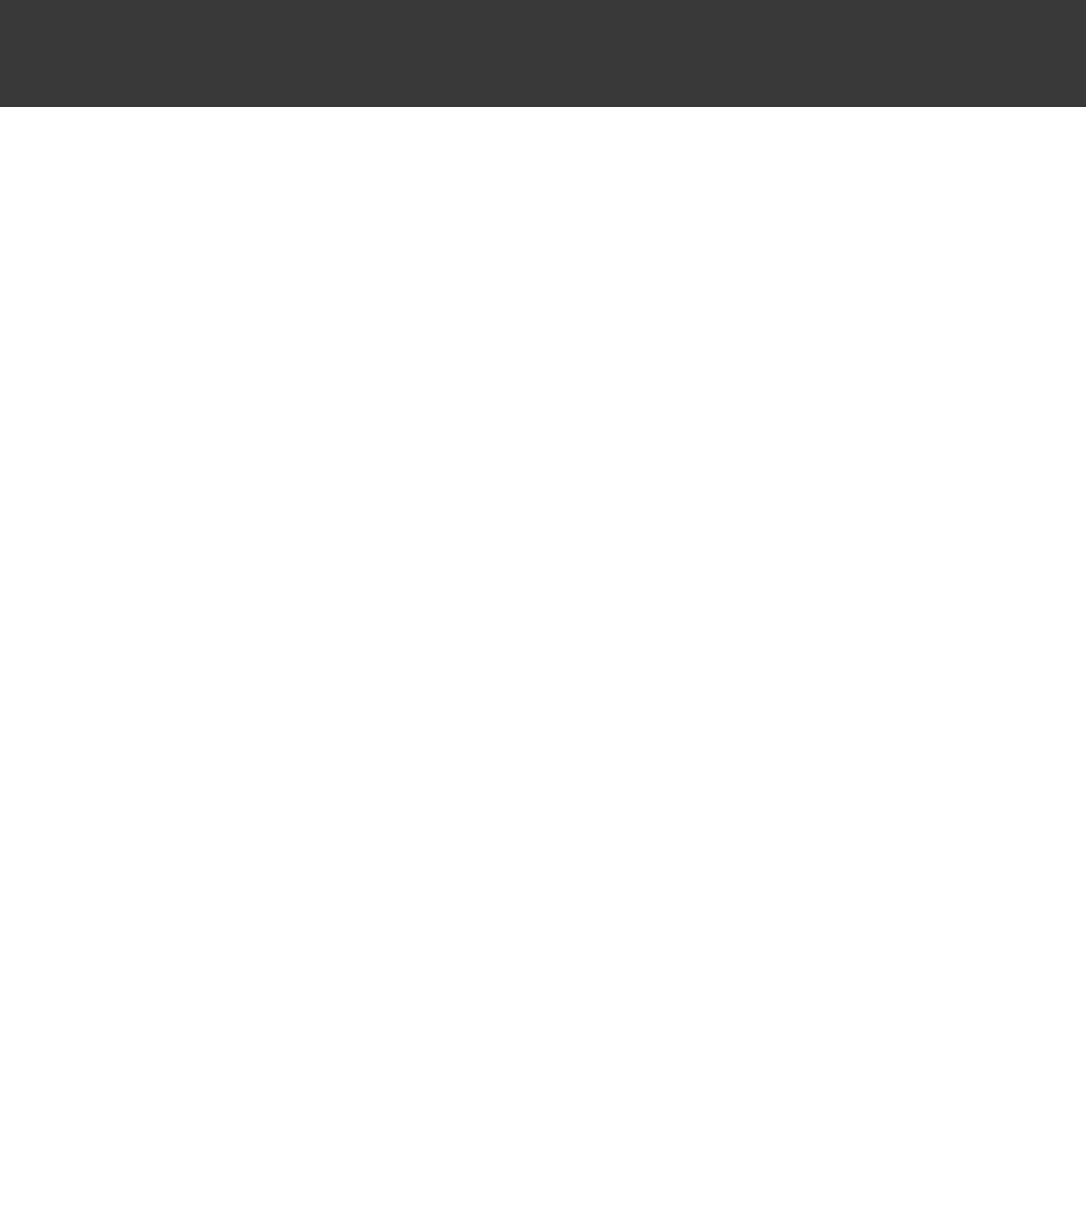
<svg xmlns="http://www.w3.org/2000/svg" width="1086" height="1219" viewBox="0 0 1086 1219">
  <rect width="100%" height="100%" fill="#ffffff"/>
  <rect x="0" y="0" width="1086" height="107" fill="#383838"/>
</svg>
